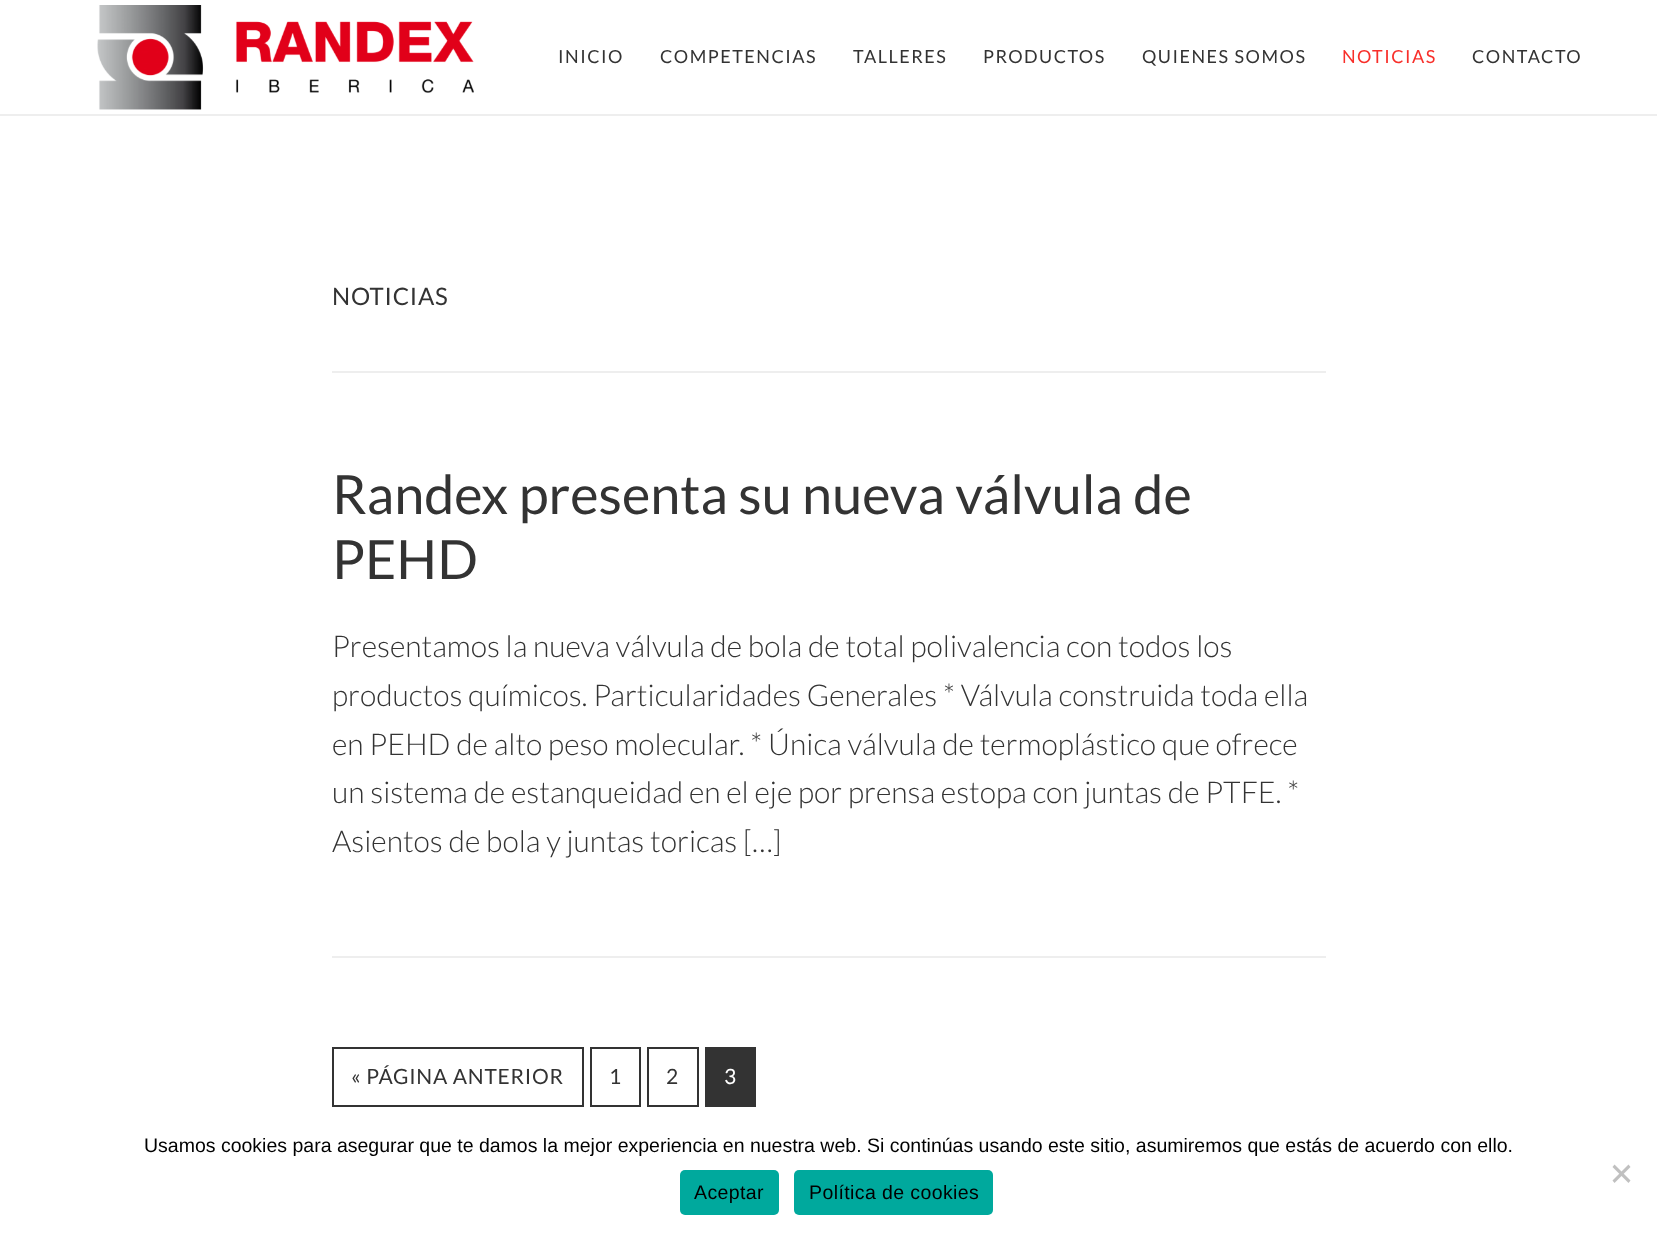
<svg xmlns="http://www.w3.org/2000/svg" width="1657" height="1237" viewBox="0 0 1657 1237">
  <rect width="100%" height="100%" fill="#ffffff"/>
  <rect x="0" y="114" width="1657" height="2" fill="#eeeeee"/>
  <image x="97" y="5" width="377" height="105" href="img1.png"/>
  <text x="558" y="63" font-family="Lato" font-size="18" letter-spacing="1.5" fill="#333333">INICIO</text>
  <text x="660" y="63" font-family="Lato" font-size="18" letter-spacing="1.5" fill="#333333">COMPETENCIAS</text>
  <text x="853" y="63" font-family="Lato" font-size="18" letter-spacing="1.5" fill="#333333">TALLERES</text>
  <text x="983" y="63" font-family="Lato" font-size="18" letter-spacing="1.5" fill="#333333">PRODUCTOS</text>
  <text x="1142" y="63" font-family="Lato" font-size="18" letter-spacing="1.5" fill="#333333">QUIENES SOMOS</text>
  <text x="1342" y="63" font-family="Lato" font-size="18" letter-spacing="1.5" fill="#f82f2a">NOTICIAS</text>
  <text x="1472" y="63" font-family="Lato" font-size="18" letter-spacing="1.5" fill="#333333">CONTACTO</text>
  <rect x="332" y="371" width="994" height="2" fill="#eeeeee"/>
  <text x="332" y="305" font-family="Lato" font-size="24" letter-spacing="0.75" fill="#333333">NOTICIAS</text>
  <rect x="332" y="956" width="994" height="2" fill="#eeeeee"/>
  <text x="332" y="514" font-family="Lato" font-size="54" fill="#333333">Randex presenta su nueva válvula de</text>
  <text x="332" y="579" font-family="Lato" font-size="54" fill="#333333">PEHD</text>
  <text x="332" y="657" font-family="Lato" font-size="30" font-weight="300" fill="#333333">Presentamos la nueva válvula de bola de total polivalencia con todos los</text>
  <text x="332" y="706" font-family="Lato" font-size="30" font-weight="300" fill="#333333">productos químicos. Particularidades Generales * Válvula construida toda ella</text>
  <text x="332" y="755" font-family="Lato" font-size="30" font-weight="300" fill="#333333">en PEHD de alto peso molecular. * Única válvula de termoplástico que ofrece</text>
  <text x="332" y="803" font-family="Lato" font-size="30" font-weight="300" fill="#333333">un sistema de estanqueidad en el eje por prensa estopa con juntas de PTFE. *</text>
  <text x="332" y="852" font-family="Lato" font-size="30" font-weight="300" fill="#333333">Asientos de bola y juntas toricas […]</text>
  <rect x="333" y="1048" width="250" height="58" fill="none" stroke="#333333" stroke-width="2"/>
  <text x="351" y="1084" font-family="Lato" font-size="21" letter-spacing="0.75" fill="#333333">« PÁGINA ANTERIOR</text>
  <rect x="591" y="1048" width="49" height="58" fill="none" stroke="#333333" stroke-width="2"/>
  <text x="609" y="1084" font-family="Lato" font-size="21" letter-spacing="0.75" fill="#333333">1</text>
  <rect x="648" y="1048" width="50" height="58" fill="none" stroke="#333333" stroke-width="2"/>
  <text x="666" y="1084" font-family="Lato" font-size="21" letter-spacing="0.75" fill="#333333">2</text>
  <rect x="705" y="1047" width="51" height="60" fill="#333333"/>
  <text x="724" y="1084" font-family="Lato" font-size="21" letter-spacing="0.75" fill="#ffffff">3</text>
  <text x="144" y="1152" font-family="Liberation Sans" font-size="19.5" fill="#000000">Usamos cookies para asegurar que te damos la mejor experiencia en nuestra web. Si continúas usando este sitio, asumiremos que estás de acuerdo con ello.</text>
  <path d="M1628.5 1164.5L1630.5 1167L1614.5 1183L1612.5 1180.5Z" fill="#c0c0c0"/>
  <path d="M1612.5 1167L1614.5 1164.5L1630.5 1180.5L1628.5 1183Z" fill="#c0c0c0"/>
  <rect x="680" y="1170" width="99" height="45" rx="5" fill="#00a99d"/>
  <text x="694" y="1199" font-family="Liberation Sans" font-size="19.5" letter-spacing="0.4" fill="#000000">Aceptar</text>
  <rect x="794" y="1170" width="199" height="45" rx="5" fill="#00a99d"/>
  <text x="809" y="1199" font-family="Liberation Sans" font-size="19.5" letter-spacing="0.4" fill="#000000">Política de cookies</text>
</svg>
